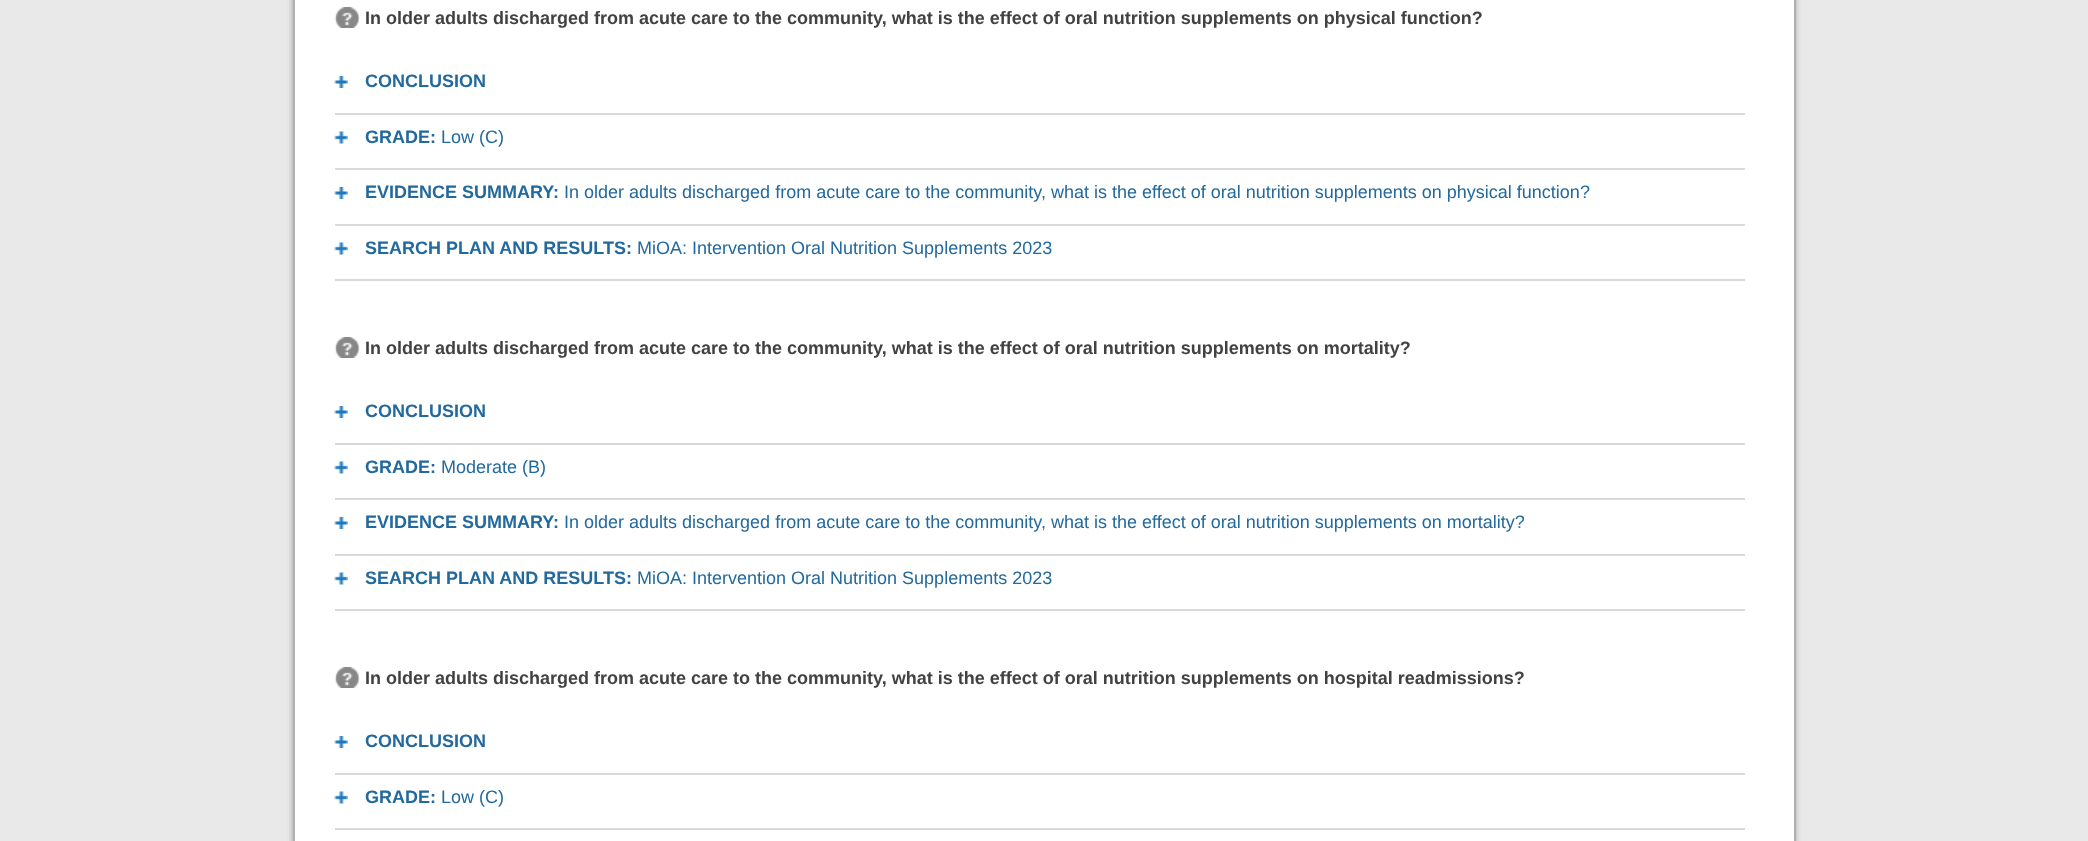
<svg xmlns="http://www.w3.org/2000/svg" width="2088" height="841" viewBox="0 0 2088 841">
  <defs>
    <filter id="blur1" x="-50%" y="-200%" width="200%" height="500%"><feGaussianBlur stdDeviation="2"/></filter>
  </defs>
  <rect width="100%" height="100%" fill="#e9e9e9"/>
  <rect x="291" y="-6" width="1506" height="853" fill="#000000" fill-opacity="0.2" filter="url(#blur1)"/>
  <rect x="295" y="0" width="1499" height="841" fill="#ffffff"/>
  <rect x="1794" y="0" width="2" height="841" fill="#afafaf"/>
  <rect x="293" y="0" width="2" height="841" fill="#afafaf"/>
  <image x="334" y="7" width="26" height="21" href="img1.png"/>
  <text x="365" y="24" font-family="Liberation Sans" font-size="18" font-weight="bold" fill="#424242">In older adults discharged from acute care to the community, what is the effect of oral nutrition supplements on physical function?</text>
  <rect x="335" y="279" width="1410" height="2" fill="#d9d9d9"/>
  <image x="334" y="76" width="14" height="12" href="img2.png"/>
  <text x="365" y="87" font-family="Liberation Sans" font-size="18" font-weight="bold" fill="#22699e">CONCLUSION</text>
  <rect x="335" y="113" width="1410" height="2" fill="#d9d9d9"/>
  <image x="334" y="131" width="14" height="13" href="img3.png"/>
  <text x="365" y="143" font-family="Liberation Sans" font-size="18" font-weight="bold" fill="#22699e">GRADE:</text>
  <text x="441" y="143" font-family="Liberation Sans" font-size="18" fill="#22699e">Low (C)</text>
  <rect x="335" y="168" width="1410" height="2" fill="#d9d9d9"/>
  <image x="334" y="187" width="14" height="12" href="img2.png"/>
  <text x="365" y="198" font-family="Liberation Sans" font-size="18" font-weight="bold" fill="#22699e">EVIDENCE SUMMARY:</text>
  <text x="564" y="198" font-family="Liberation Sans" font-size="18" fill="#22699e">In older adults discharged from acute care to the community, what is the effect of oral nutrition supplements on physical function?</text>
  <rect x="335" y="224" width="1410" height="2" fill="#d9d9d9"/>
  <image x="334" y="242" width="14" height="13" href="img3.png"/>
  <text x="365" y="254" font-family="Liberation Sans" font-size="18" font-weight="bold" fill="#22699e">SEARCH PLAN AND RESULTS:</text>
  <text x="637" y="254" font-family="Liberation Sans" font-size="18" fill="#22699e">MiOA: Intervention Oral Nutrition Supplements 2023</text>
  <image x="334" y="337" width="26" height="21" href="img1.png"/>
  <text x="365" y="354" font-family="Liberation Sans" font-size="18" font-weight="bold" fill="#424242">In older adults discharged from acute care to the community, what is the effect of oral nutrition supplements on mortality?</text>
  <rect x="335" y="609" width="1410" height="2" fill="#d9d9d9"/>
  <image x="334" y="406" width="14" height="12" href="img2.png"/>
  <text x="365" y="417" font-family="Liberation Sans" font-size="18" font-weight="bold" fill="#22699e">CONCLUSION</text>
  <rect x="335" y="443" width="1410" height="2" fill="#d9d9d9"/>
  <image x="334" y="461" width="14" height="13" href="img3.png"/>
  <text x="365" y="473" font-family="Liberation Sans" font-size="18" font-weight="bold" fill="#22699e">GRADE:</text>
  <text x="441" y="473" font-family="Liberation Sans" font-size="18" fill="#22699e">Moderate (B)</text>
  <rect x="335" y="498" width="1410" height="2" fill="#d9d9d9"/>
  <image x="334" y="517" width="14" height="12" href="img2.png"/>
  <text x="365" y="528" font-family="Liberation Sans" font-size="18" font-weight="bold" fill="#22699e">EVIDENCE SUMMARY:</text>
  <text x="564" y="528" font-family="Liberation Sans" font-size="18" fill="#22699e">In older adults discharged from acute care to the community, what is the effect of oral nutrition supplements on mortality?</text>
  <rect x="335" y="554" width="1410" height="2" fill="#d9d9d9"/>
  <image x="334" y="572" width="14" height="13" href="img3.png"/>
  <text x="365" y="584" font-family="Liberation Sans" font-size="18" font-weight="bold" fill="#22699e">SEARCH PLAN AND RESULTS:</text>
  <text x="637" y="584" font-family="Liberation Sans" font-size="18" fill="#22699e">MiOA: Intervention Oral Nutrition Supplements 2023</text>
  <image x="334" y="667" width="26" height="21" href="img1.png"/>
  <text x="365" y="684" font-family="Liberation Sans" font-size="18" font-weight="bold" fill="#424242">In older adults discharged from acute care to the community, what is the effect of oral nutrition supplements on hospital readmissions?</text>
  <image x="334" y="736" width="14" height="12" href="img2.png"/>
  <text x="365" y="747" font-family="Liberation Sans" font-size="18" font-weight="bold" fill="#22699e">CONCLUSION</text>
  <rect x="335" y="773" width="1410" height="2" fill="#d9d9d9"/>
  <image x="334" y="791" width="14" height="13" href="img3.png"/>
  <text x="365" y="803" font-family="Liberation Sans" font-size="18" font-weight="bold" fill="#22699e">GRADE:</text>
  <text x="441" y="803" font-family="Liberation Sans" font-size="18" fill="#22699e">Low (C)</text>
  <rect x="335" y="828" width="1410" height="2" fill="#d9d9d9"/>
</svg>
